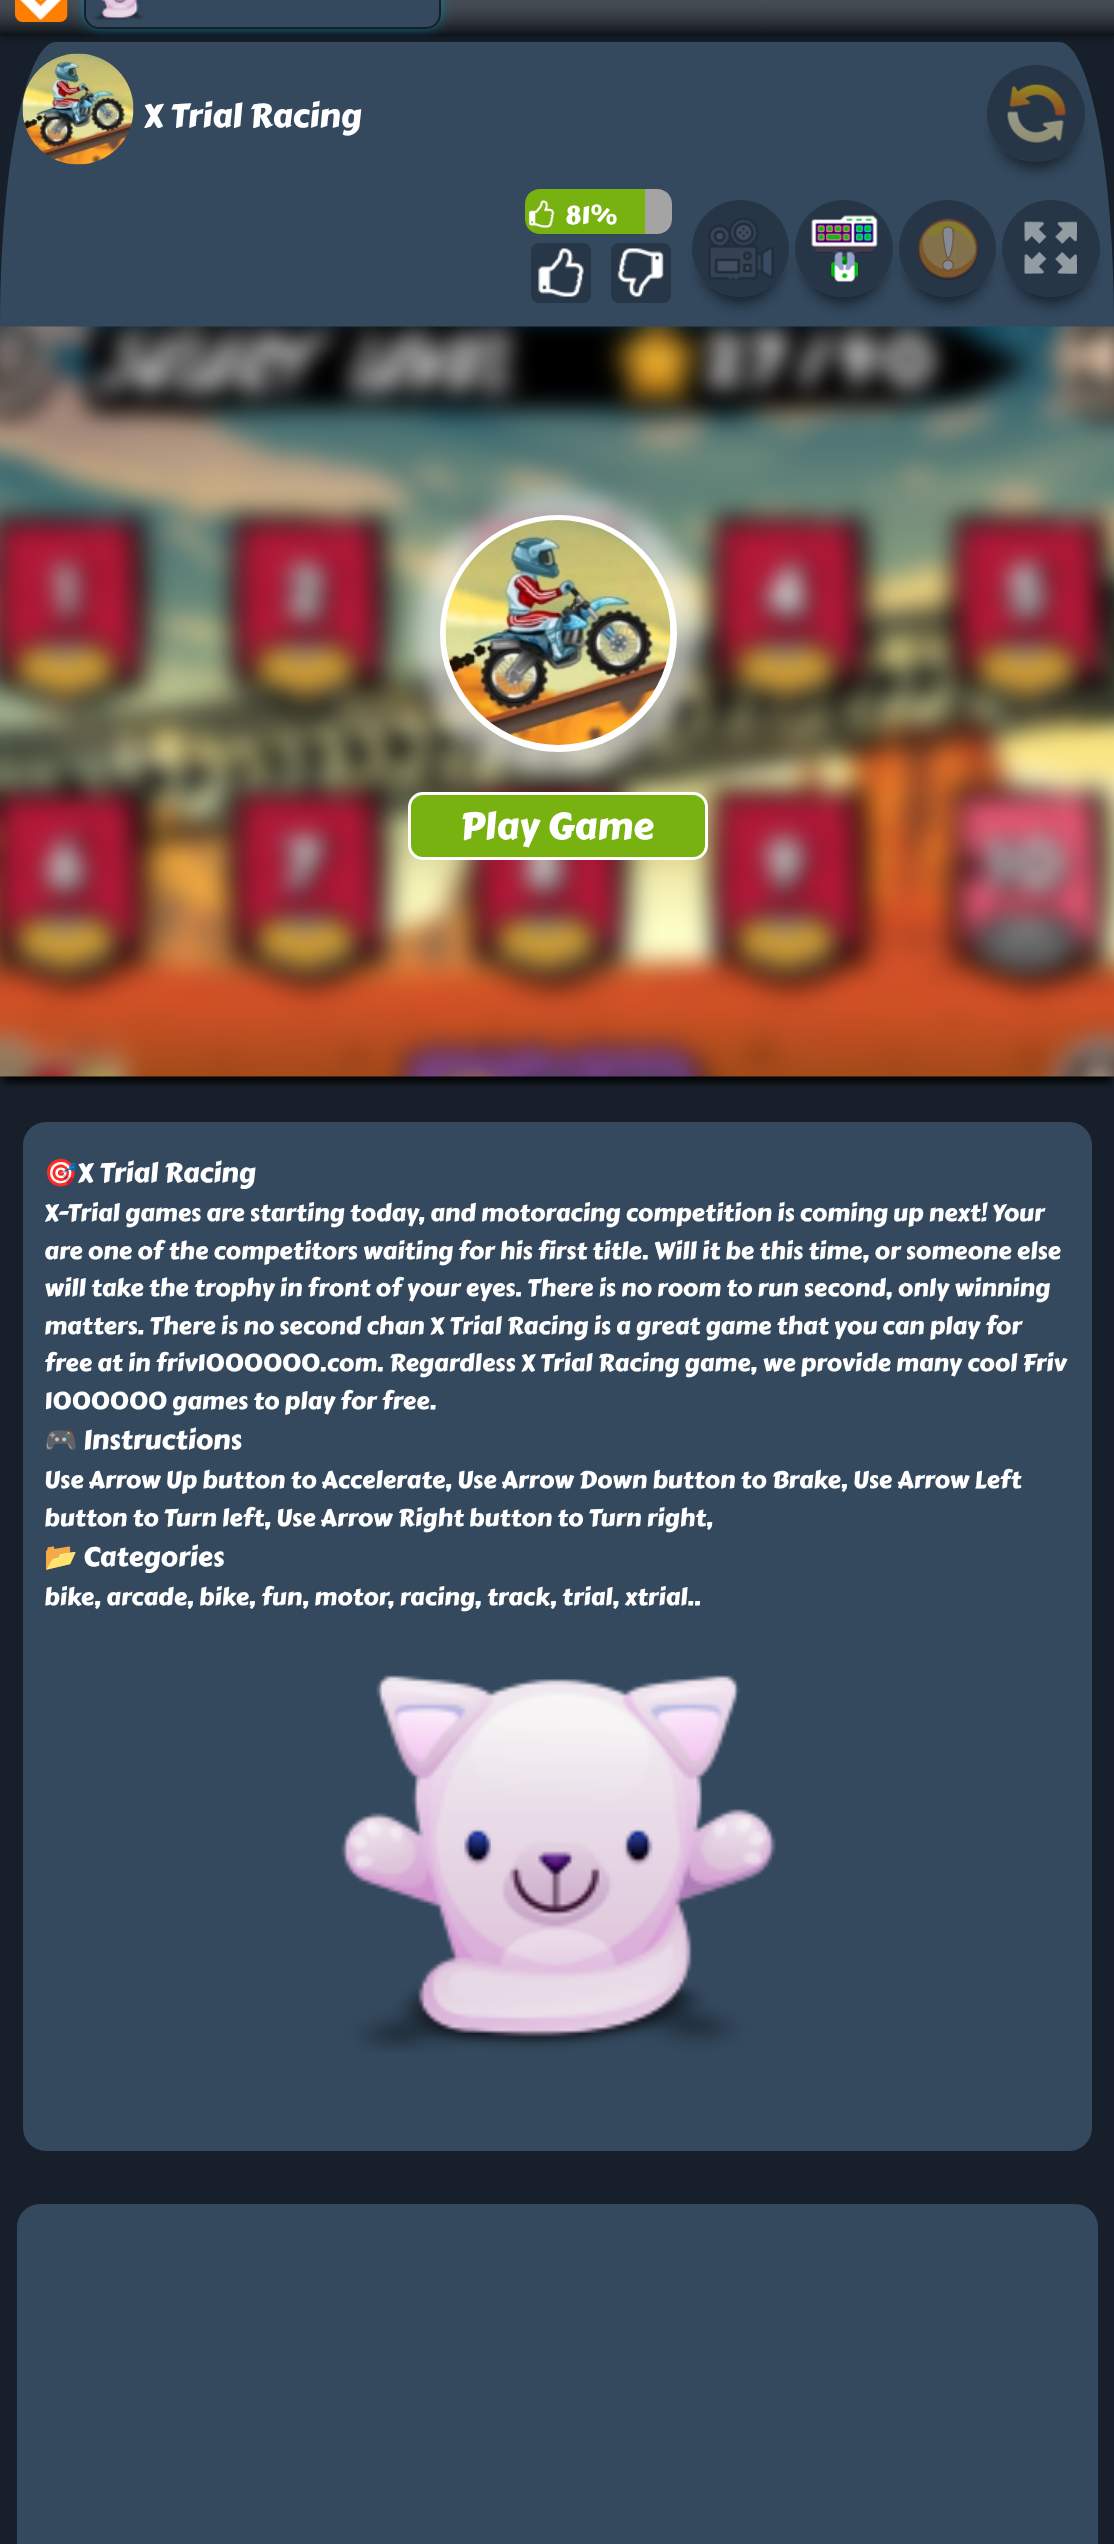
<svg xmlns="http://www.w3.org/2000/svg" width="1114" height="2544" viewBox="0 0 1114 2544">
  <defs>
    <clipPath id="clip1"><path d="M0 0H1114V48H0ZM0-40H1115V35H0Z" clip-rule="evenodd"/></clipPath>
    <filter id="blur1" x="-50%" y="-200%" width="200%" height="500%"><feGaussianBlur stdDeviation="3"/></filter>
    <linearGradient id="g1" gradientUnits="userSpaceOnUse" x1="557" y1="-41" x2="557" y2="35"><stop offset="0" stop-color="#ffffff" stop-opacity="0.1"/><stop offset="0.5" stop-color="#ffffff" stop-opacity="0.2"/><stop offset="1" stop-color="#000000" stop-opacity="0.4"/></linearGradient>
    <filter id="blur2" x="-50%" y="-200%" width="200%" height="500%"><feGaussianBlur stdDeviation="6"/></filter>
    <clipPath id="clip2"><path d="M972 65H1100V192H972ZM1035.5 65H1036.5C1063.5 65 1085 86.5 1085 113.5C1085 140.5 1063.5 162 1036.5 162H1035.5C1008.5 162 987 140.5 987 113.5C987 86.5 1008.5 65 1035.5 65Z" clip-rule="evenodd"/></clipPath>
    <filter id="blur3" x="-50%" y="-200%" width="200%" height="500%"><feGaussianBlur stdDeviation="7.5"/></filter>
    <clipPath id="clip3"><path d="M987 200H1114V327H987ZM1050.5 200H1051.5C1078.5 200 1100 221.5 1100 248.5C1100 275.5 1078.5 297 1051.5 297H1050.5C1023.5 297 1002 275.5 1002 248.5C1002 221.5 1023.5 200 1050.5 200Z" clip-rule="evenodd"/></clipPath>
    <clipPath id="clip4"><path d="M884 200H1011V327H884ZM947.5 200C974.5 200 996 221.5 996 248.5C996 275.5 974.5 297 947.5 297C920.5 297 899 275.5 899 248.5C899 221.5 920.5 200 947.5 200Z" clip-rule="evenodd"/></clipPath>
    <clipPath id="clip5"><path d="M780 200H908V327H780ZM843.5 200H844.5C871.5 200 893 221.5 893 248.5C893 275.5 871.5 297 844.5 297H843.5C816.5 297 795 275.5 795 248.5C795 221.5 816.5 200 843.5 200Z" clip-rule="evenodd"/></clipPath>
    <clipPath id="clip6"><path d="M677 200H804V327H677ZM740.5 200C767.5 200 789 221.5 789 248.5C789 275.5 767.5 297 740.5 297C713.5 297 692 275.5 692 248.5C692 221.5 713.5 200 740.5 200Z" clip-rule="evenodd"/></clipPath>
    <filter id="blur4" x="-50%" y="-200%" width="200%" height="500%"><feGaussianBlur stdDeviation="4"/></filter>
    <filter id="blur5" x="-50%" y="-200%" width="200%" height="500%"><feGaussianBlur stdDeviation="11"/></filter>
  </defs>
  <rect width="100%" height="100%" fill="#17202a"/>
  <g clip-path="url(#clip1)">
    <rect x="0" y="-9" width="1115" height="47" fill="#000000" fill-opacity="0.4" filter="url(#blur1)"/>
  </g>
  <rect x="0" y="0" width="1114" height="35" fill="url(#g1)"/>
  <image x="15" y="0" width="53" height="22" href="img1.png"/>
  <rect x="84" y="-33" width="357" height="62" rx="15" fill="#0092bf" fill-opacity="0.6" filter="url(#blur2)"/>
  <rect x="85" y="-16" width="355" height="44" rx="14" fill="#34495e" stroke="#17202a" stroke-width="2"/>
  <image x="94" y="0" width="50" height="21" href="img2.png"/>
  <path d="M56 42H1059C1090 42 1114 170 1114 327H0C0 170 25 42 56 42Z" fill="#34495e"/>
  <image x="22" y="53" width="112" height="112" href="img3.png"/>
  <text x="143" y="127" font-family="Carter One" font-size="33" fill="#ffffff">X Trial Racing</text>
  <g clip-path="url(#clip2)">
    <rect x="996" y="89" width="80" height="79" rx="39.5" fill="#000000" fill-opacity="0.6" filter="url(#blur3)"/>
  </g>
  <rect x="987" y="65" width="98" height="97" rx="48.5" fill="#000000" fill-opacity="0.25"/>
  <image x="1007" y="84" width="59" height="59" href="img4.png"/>
  <path d="M540 189H645V234H540C531.5 234 525 227.5 525 219V204C525 195.5 531.5 189 540 189Z" fill="#77b211"/>
  <image x="528" y="200" width="27" height="28" href="img5.png"/>
  <text x="565" y="224" font-family="Carter One" font-size="25.5" fill="#ffffff">81%</text>
  <path d="M645 189H657C665.5 189 672 195.5 672 204V219C672 227.5 665.5 234 657 234H645Z" fill="#a4a4a4"/>
  <rect x="531" y="243" width="60" height="60" rx="8" fill="#273747"/>
  <image x="538" y="248" width="46" height="49" href="img6.png"/>
  <rect x="611" y="243" width="60" height="60" rx="8" fill="#273747"/>
  <image x="617" y="248" width="47" height="49" href="img7.png"/>
  <g clip-path="url(#clip3)">
    <rect x="1011" y="224" width="80" height="79" rx="39.5" fill="#000000" fill-opacity="0.6" filter="url(#blur3)"/>
  </g>
  <rect x="1002" y="200" width="98" height="97" rx="48.5" fill="#000000" fill-opacity="0.25"/>
  <g clip-path="url(#clip4)">
    <rect x="908" y="224" width="79" height="79" rx="39.5" fill="#000000" fill-opacity="0.6" filter="url(#blur3)"/>
  </g>
  <circle cx="947.5" cy="248.5" r="48.5" fill="#000000" fill-opacity="0.25"/>
  <g clip-path="url(#clip5)">
    <rect x="804" y="224" width="80" height="79" rx="39.5" fill="#000000" fill-opacity="0.6" filter="url(#blur3)"/>
  </g>
  <rect x="795" y="200" width="98" height="97" rx="48.5" fill="#000000" fill-opacity="0.25"/>
  <g clip-path="url(#clip6)">
    <rect x="701" y="224" width="79" height="79" rx="39.5" fill="#000000" fill-opacity="0.6" filter="url(#blur3)"/>
  </g>
  <circle cx="740.5" cy="248.5" r="48.5" fill="#000000" fill-opacity="0.25"/>
  <image x="708" y="217" width="66" height="63" href="img8.png"/>
  <image x="811" y="215" width="67" height="67" href="img9.png"/>
  <image x="918" y="218" width="61" height="63" href="img10.png"/>
  <image x="1024" y="221" width="53" height="53" href="img11.png"/>
  <rect x="3" y="338" width="1109" height="744" fill="#000000" filter="url(#blur4)"/>
  <rect x="0" y="1076" width="1114" height="1" fill="#000000"/>
  <image x="0" y="326" width="1114" height="751" href="img12.png"/>
  <rect x="417" y="492" width="282" height="282" rx="141" fill="#ffffff" fill-opacity="0.55" filter="url(#blur5)"/>
  <circle cx="558.5" cy="633.5" r="115.5" fill="#ffffff" stroke="#ffffff" stroke-width="6"/>
  <image x="445" y="520" width="226" height="225" href="img13.png"/>
  <rect x="409.5" y="793.5" width="297" height="65" rx="13.5" fill="#77b211" stroke="#ffffff" stroke-width="3"/>
  <text x="460" y="839" font-family="Carter One" font-size="37.5" fill="#ffffff">Play Game</text>
  <rect x="23" y="1122" width="1069" height="1029" rx="23" fill="#34495e"/>
  <text x="44" y="1182" font-family="Noto Color Emoji" font-size="27" fill="#ffffff">🎯</text>
  <text x="77" y="1182" font-family="Carter One" font-size="27" fill="#ffffff">X Trial Racing</text>
  <text x="44" y="1221" font-family="Carter One" font-size="24" fill="#ffffff">X-Trial games are starting today, and motoracing competition is coming up next! Your</text>
  <text x="44" y="1259" font-family="Carter One" font-size="24" fill="#ffffff">are one of the competitors waiting for his first title. Will it be this time, or someone else</text>
  <text x="44" y="1296" font-family="Carter One" font-size="24" fill="#ffffff">will take the trophy in front of your eyes. There is no room to run second, only winning</text>
  <text x="44" y="1334" font-family="Carter One" font-size="24" fill="#ffffff">matters. There is no second chan X Trial Racing is a great game that you can play for</text>
  <text x="44" y="1371" font-family="Carter One" font-size="24" fill="#ffffff">free at in friv1000000.com. Regardless X Trial Racing game, we provide many cool Friv</text>
  <text x="44" y="1409" font-family="Carter One" font-size="24" fill="#ffffff">1000000 games to play for free.</text>
  <text x="44" y="1449" font-family="Noto Color Emoji" font-size="27" fill="#ffffff">🎮</text>
  <text x="83" y="1449" font-family="Carter One" font-size="27" fill="#ffffff">Instructions</text>
  <text x="44" y="1488" font-family="Carter One" font-size="24" fill="#ffffff">Use Arrow Up button to Accelerate, Use Arrow Down button to Brake, Use Arrow Left</text>
  <text x="44" y="1526" font-family="Carter One" font-size="24" fill="#ffffff">button to Turn left, Use Arrow Right button to Turn right,</text>
  <text x="44" y="1566" font-family="Noto Color Emoji" font-size="27" fill="#ffffff">📂</text>
  <text x="83" y="1566" font-family="Carter One" font-size="27" fill="#ffffff">Categories</text>
  <text x="44" y="1605" font-family="Carter One" font-size="24" fill="#ffffff">bike, arcade, bike, fun, motor, racing, track, trial, xtrial..</text>
  <image x="341" y="1675" width="435" height="378" href="img14.png"/>
  <rect x="17" y="2204" width="1081" height="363" rx="23" fill="#34495e"/>
</svg>
